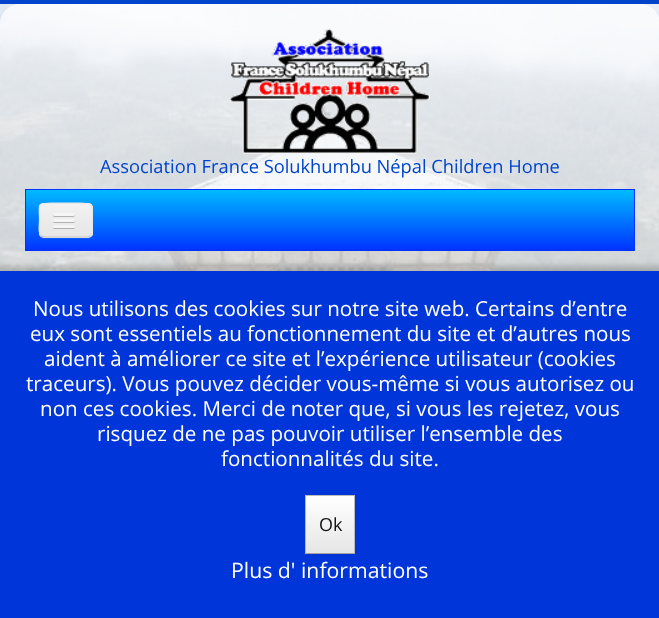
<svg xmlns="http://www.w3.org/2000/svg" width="659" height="618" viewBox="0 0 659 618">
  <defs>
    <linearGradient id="g1" gradientUnits="userSpaceOnUse" x1="330" y1="190" x2="330" y2="250"><stop offset="0" stop-color="#00bbff"/><stop offset="1" stop-color="#0033ff"/></linearGradient>
    <clipPath id="clip1"><rect x="39" y="203" width="54" height="35" rx="5"/></clipPath>
    <linearGradient id="g2" gradientUnits="userSpaceOnUse" x1="66" y1="204" x2="66" y2="236"><stop offset="0" stop-color="#f2f2f2"/><stop offset="1" stop-color="#e6e6e6"/></linearGradient>
    <filter id="blur1" x="-50%" y="-200%" width="200%" height="500%"><feGaussianBlur stdDeviation="3"/></filter>
    <filter id="blur2" x="-50%" y="-200%" width="200%" height="500%"><feGaussianBlur stdDeviation="1"/></filter>
    <linearGradient id="g3" gradientUnits="userSpaceOnUse" x1="330" y1="496" x2="330" y2="553"><stop offset="0" stop-color="#ffffff"/><stop offset="1" stop-color="#e6e6e6"/></linearGradient>
  </defs>
  <rect width="100%" height="100%" fill="#ffffff"/>
  <image x="0" y="4" width="659" height="267" href="img1.png"/>
  <rect x="0" y="0" width="659" height="4" fill="#0044cc"/>
  <image x="230" y="28" width="200" height="126" href="img2.png"/>
  <text x="100" y="173" font-family="Open Sans" font-size="18.3" fill="#0044cc">Association France Solukhumbu Népal Children Home</text>
  <rect x="26" y="190" width="608" height="60" fill="url(#g1)"/>
  <rect x="25.5" y="189.5" width="609" height="61" fill="none" stroke="#0033ff"/>
  <path d="M39 234C39 237 41 239 44 239H88C91 239 93 237 93 234V209L92 207V232C92 235 90 238 88 238H44C42 238 40 236 39 234Z" fill="#ffffff" fill-opacity="0.07"/>
  <rect x="39" y="203" width="54" height="35" rx="5" fill="#ededed"/>
  <g clip-path="url(#clip1)">
    <rect x="39" y="204" width="54" height="32" fill="url(#g2)"/>
  </g>
  <path d="M90.5 235.5C90 236.5 88.5 237 87.5 237H44C42.5 237 41.5 236.5 40.5 235.5" fill="none" stroke="#bfbfbf" stroke-width="1.2"/>
  <path d="M40.5 235.5C38 233 39.5 223 39.5 220C39.5 204 36 203 51 203H80C95 203 92 204 92 220C92 223 93 233 90.5 235.5" fill="none" stroke="#e6e6e6" stroke-width="1.2"/>
  <path d="M53 215C52 217.5 57 217 57.5 217H70.5C70.5 217 77 217.5 74.5 214.5L74 215Z" fill="#b2b2b2"/>
  <rect x="53" y="213" width="22" height="3" rx="1.5" fill="#f5f5f5"/>
  <path d="M53 221C52.5 223.5 57 223 57.5 223H70.5C71 223 76.5 223.5 75 220.5L74 221Z" fill="#b0b0b0"/>
  <rect x="53" y="219" width="22" height="3" rx="1.5" fill="#f5f5f5"/>
  <path d="M53 227.5C52.5 229.5 56.5 229 57.5 229H70.5C71 229 76 229.5 75 227L74 227.5C72 227.5 53.5 227.5 53 227.5Z" fill="#afafaf"/>
  <rect x="53" y="225" width="22" height="3" rx="1.5" fill="#f5f5f5"/>
  <rect x="-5" y="266" width="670" height="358" fill="#000000" fill-opacity="0.21" filter="url(#blur1)"/>
  <rect x="0" y="271" width="659" height="347" fill="#0036d9"/>
  <text x="33" y="316" font-family="Open Sans" font-size="20.6" fill="#ffffff">Nous utilisons des cookies sur notre site web. Certains d’entre</text>
  <text x="30" y="341" font-family="Open Sans" font-size="20.6" fill="#ffffff">eux sont essentiels au fonctionnement du site et d’autres nous</text>
  <text x="44" y="366" font-family="Open Sans" font-size="20.6" fill="#ffffff">aident à améliorer ce site et l’expérience utilisateur (cookies</text>
  <text x="26" y="391" font-family="Open Sans" font-size="20.6" fill="#ffffff">traceurs). Vous pouvez décider vous-même si vous autorisez ou</text>
  <text x="40" y="416" font-family="Open Sans" font-size="20.6" fill="#ffffff">non ces cookies. Merci de noter que, si vous les rejetez, vous</text>
  <text x="97" y="441" font-family="Open Sans" font-size="20.6" fill="#ffffff">risquez de ne pas pouvoir utiliser l’ensemble des</text>
  <text x="221" y="466" font-family="Open Sans" font-size="20.6" fill="#ffffff">fonctionnalités du site.</text>
  <rect x="305" y="496" width="50" height="59" fill="#000000" fill-opacity="0.05" filter="url(#blur2)"/>
  <rect x="306" y="496" width="48" height="57" fill="url(#g3)"/>
  <rect x="305" y="495" width="50" height="1" fill="#bbbbbb"/>
  <rect x="354" y="495" width="1" height="59" fill="#bbbbbb"/>
  <rect x="305" y="553" width="50" height="1" fill="#a2a2a2"/>
  <rect x="305" y="495" width="1" height="59" fill="#bbbbbb"/>
  <text x="319" y="531" font-family="Open Sans" font-size="18" fill="#111111">Ok</text>
  <text x="231" y="578" font-family="Open Sans" font-size="21.25" fill="#ffffff">Plus d' informations</text>
</svg>
